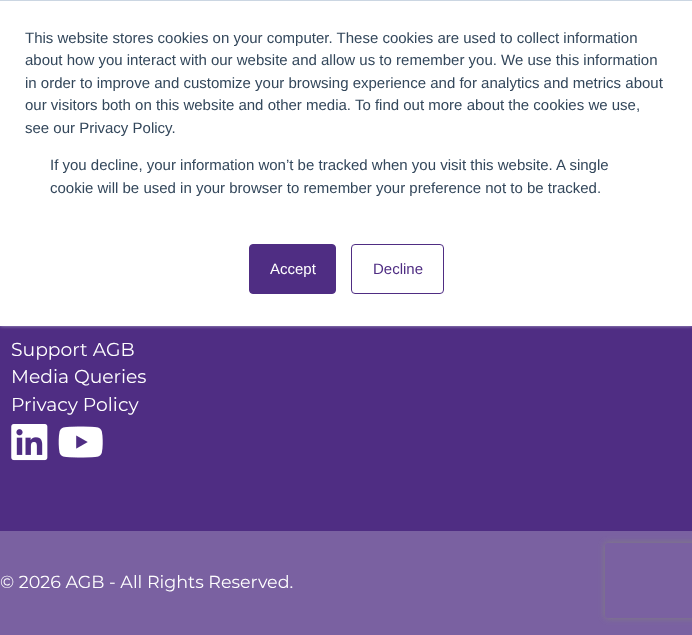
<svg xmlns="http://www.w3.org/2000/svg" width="692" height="635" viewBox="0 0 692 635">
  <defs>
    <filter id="blur1" x="-50%" y="-200%" width="200%" height="500%"><feGaussianBlur stdDeviation="2"/></filter>
    <clipPath id="clip1"><path d="M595 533H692V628H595ZM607.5 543H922.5C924 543 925 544 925 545.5V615.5C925 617 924 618 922.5 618H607.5C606 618 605 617 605 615.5V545.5C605 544 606 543 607.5 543Z" clip-rule="evenodd"/></clipPath>
    <filter id="blur2" x="-50%" y="-200%" width="200%" height="500%"><feGaussianBlur stdDeviation="3"/></filter>
  </defs>
  <rect width="100%" height="100%" fill="#4f2d83"/>
  <rect x="0" y="-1" width="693" height="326" fill="#eaf0f6" filter="url(#blur1)"/>
  <rect x="0" y="1" width="692" height="325" fill="#ffffff"/>
  <rect x="0" y="0" width="692" height="1" fill="#cbd6e2"/>
  <text x="25" y="43" font-family="Liberation Sans" font-size="15" fill="#33475b">This website stores cookies on your computer. These cookies are used to collect information</text>
  <text x="25" y="65" font-family="Liberation Sans" font-size="15" fill="#33475b">about how you interact with our website and allow us to remember you. We use this information</text>
  <text x="25" y="88" font-family="Liberation Sans" font-size="15" fill="#33475b">in order to improve and customize your browsing experience and for analytics and metrics about</text>
  <text x="25" y="110" font-family="Liberation Sans" font-size="15" fill="#33475b">our visitors both on this website and other media. To find out more about the cookies we use,</text>
  <text x="25" y="133" font-family="Liberation Sans" font-size="15" fill="#33475b">see our Privacy Policy.</text>
  <text x="50" y="170" font-family="Liberation Sans" font-size="15" fill="#33475b">If you decline, your information won’t be tracked when you visit this website. A single</text>
  <text x="50" y="193" font-family="Liberation Sans" font-size="15" fill="#33475b">cookie will be used in your browser to remember your preference not to be tracked.</text>
  <rect x="249.5" y="244.5" width="86" height="49" rx="3.5" fill="#4f2d83" stroke="#4f2d83"/>
  <text x="270" y="274" font-family="Liberation Sans" font-size="15" fill="#ffffff">Accept</text>
  <rect x="351.5" y="244.5" width="92" height="49" rx="3.5" fill="none" stroke="#4f2d83"/>
  <text x="373" y="274" font-family="Liberation Sans" font-size="15" fill="#4f2d83">Decline</text>
  <text x="11" y="356" font-family="Montserrat" font-size="18.75" fill="#ffffff">Support AGB</text>
  <text x="11" y="383" font-family="Montserrat" font-size="18.75" fill="#ffffff">Media Queries</text>
  <text x="11" y="411" font-family="Montserrat" font-size="18.75" fill="#ffffff">Privacy Policy</text>
  <image x="11" y="424" width="37" height="37" href="img1.png"/>
  <image x="58" y="426" width="45" height="32" href="img2.png"/>
  <rect x="0" y="531" width="692" height="104" fill="#7a61a1"/>
  <text x="0" y="588" font-family="Montserrat" font-size="17.5" fill="#ffffff">© 2026 AGB - All Rights Reserved.</text>
  <g clip-path="url(#clip1)">
    <rect x="605" y="543" width="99" height="75" rx="2.5" fill="#808080" filter="url(#blur2)"/>
  </g>
</svg>
